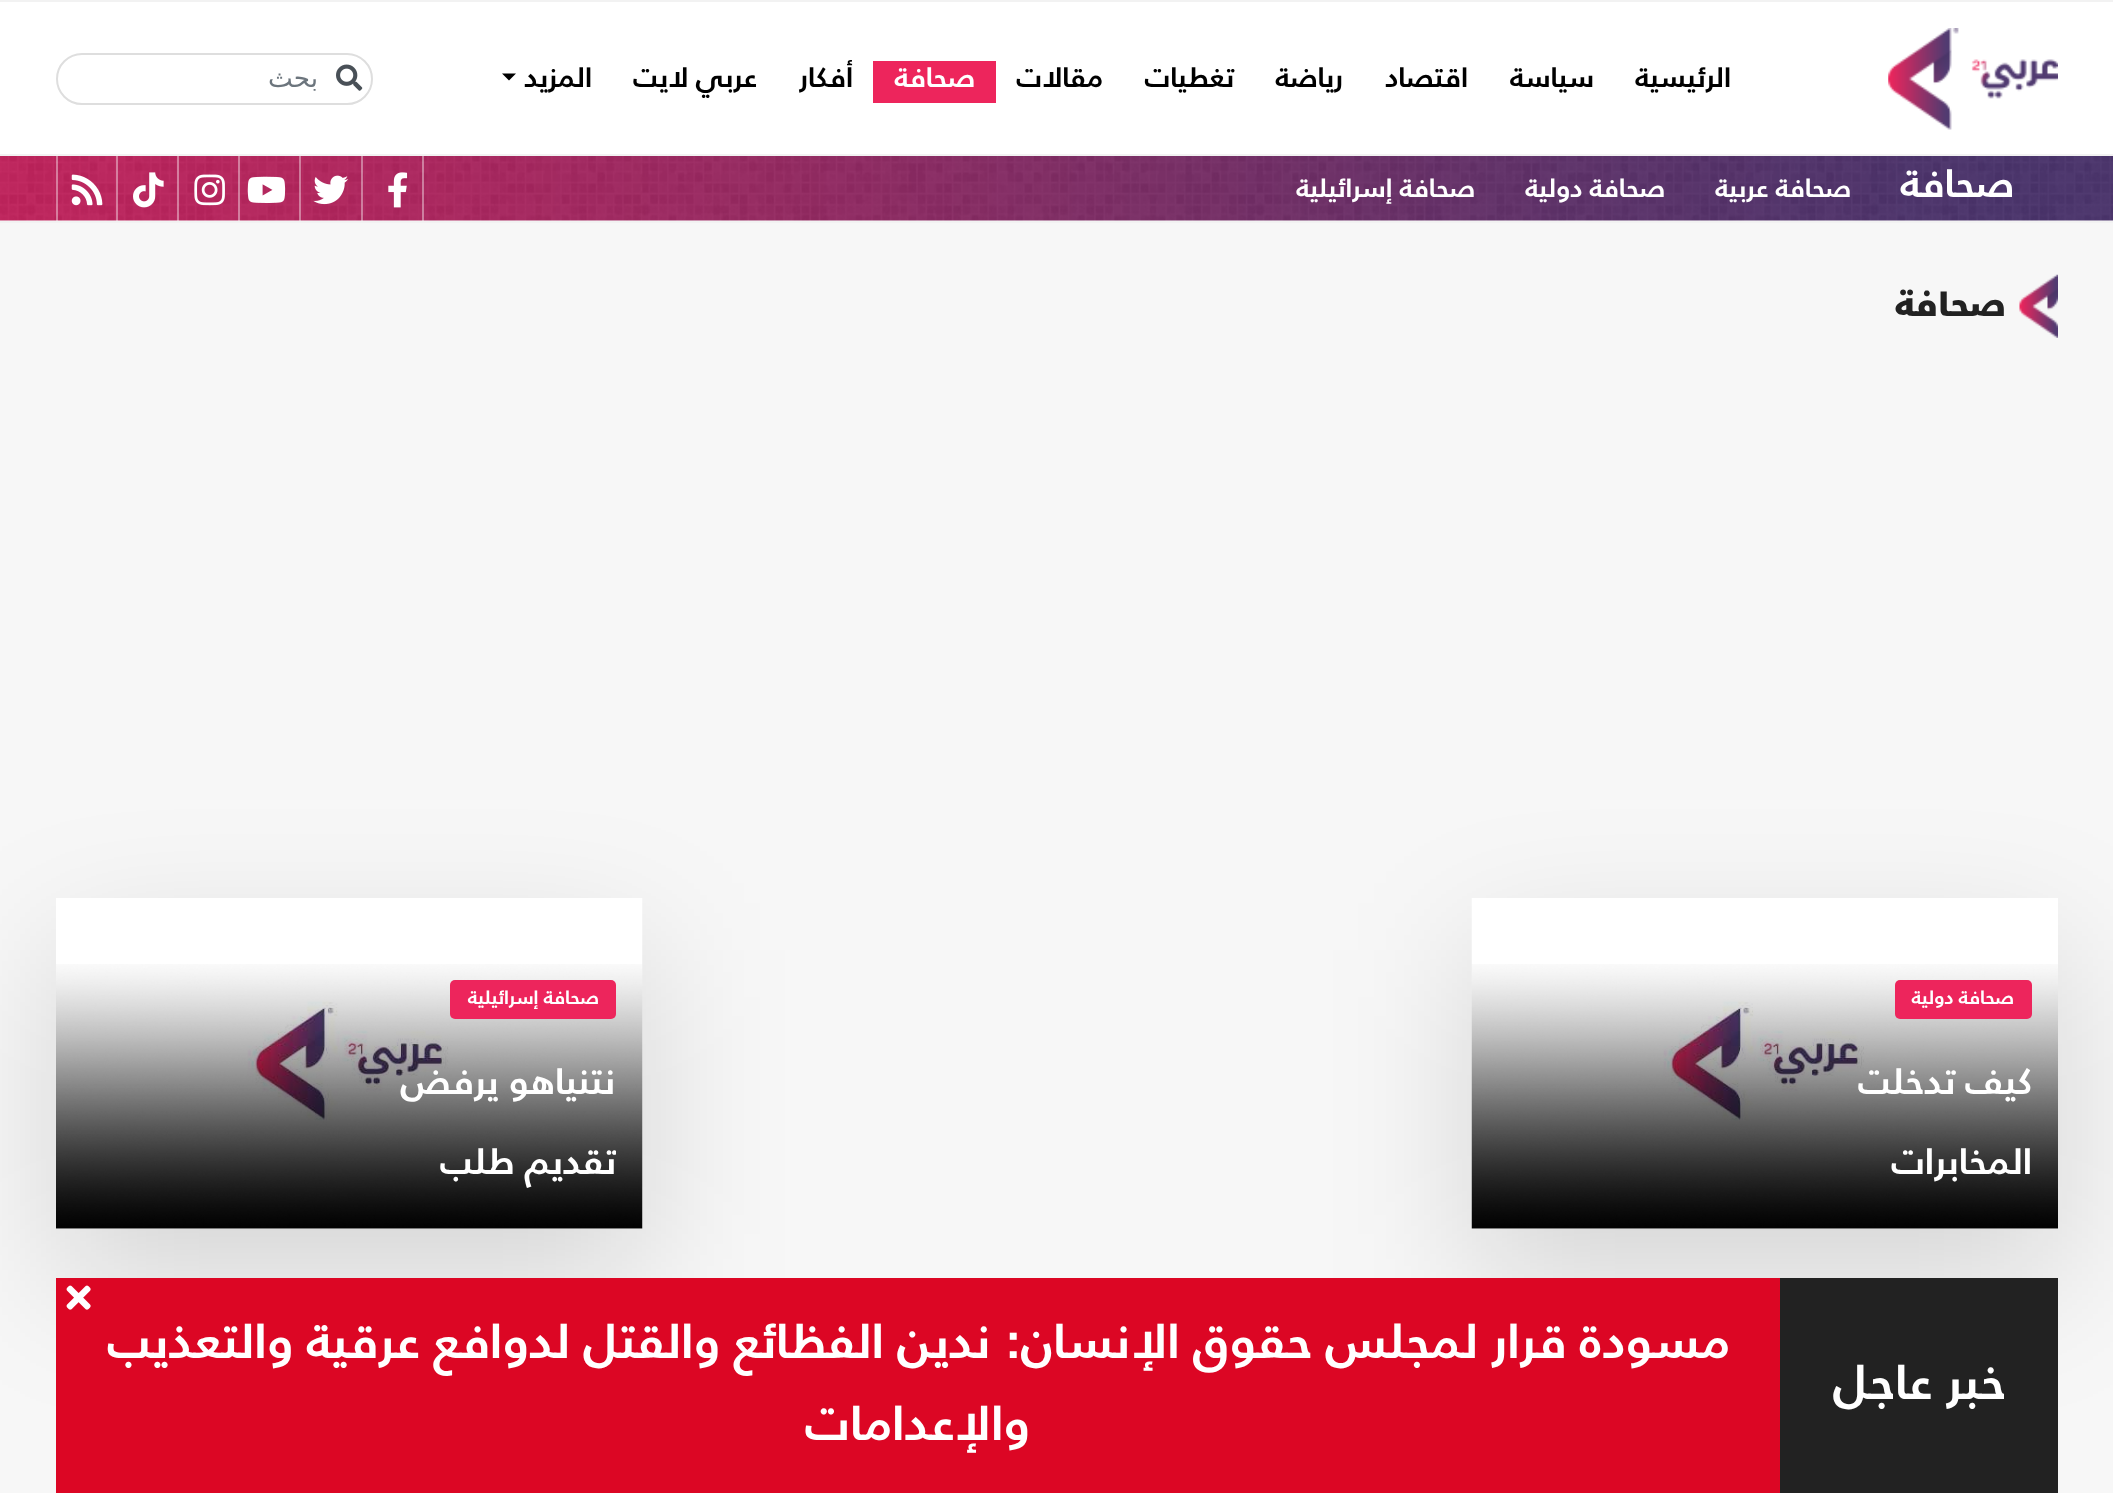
<svg xmlns="http://www.w3.org/2000/svg" width="2113" height="1493" viewBox="0 0 2113 1493">
  <defs>
    <filter id="blur1" x="-50%" y="-200%" width="200%" height="500%"><feGaussianBlur stdDeviation="71"/></filter>
    <clipPath id="clip1"><rect x="336" y="1045" width="280" height="166"/></clipPath>
  </defs>
  <rect width="100%" height="100%" fill="#f7f7f7"/>
  <rect x="0" y="2" width="2113" height="219" fill="#ffffff"/>
  <rect x="0" y="0" width="2113" height="2" fill="#f2f2f2"/>
  <rect x="0" y="221" width="2113" height="2" fill="#f2f2f2"/>
  <rect x="0" y="154" width="2113" height="2" fill="#f2f2f2"/>
  <image x="1888" y="28" width="170" height="102" href="img1.png"/>
  <text x="1731" y="87" font-family="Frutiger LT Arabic" font-size="28" font-weight="bold" direction="rtl" fill="#000000">الرئيسية</text>
  <text x="1594" y="87" font-family="Frutiger LT Arabic" font-size="28" font-weight="bold" direction="rtl" fill="#000000">سياسة</text>
  <text x="1468" y="87" font-family="Frutiger LT Arabic" font-size="28" font-weight="bold" direction="rtl" fill="#000000">اقتصاد</text>
  <text x="1343" y="87" font-family="Frutiger LT Arabic" font-size="28" font-weight="bold" direction="rtl" fill="#000000">رياضة</text>
  <text x="1234" y="87" font-family="Frutiger LT Arabic" font-size="28" font-weight="bold" direction="rtl" fill="#000000">تغطيات</text>
  <text x="1103" y="87" font-family="Frutiger LT Arabic" font-size="28" font-weight="bold" direction="rtl" fill="#000000">مقالات</text>
  <rect x="873" y="61" width="123" height="42" fill="#ed255c"/>
  <text x="975" y="87" font-family="Frutiger LT Arabic" font-size="28" font-weight="bold" direction="rtl" fill="#ffffff">صحافة</text>
  <text x="853" y="87" font-family="Frutiger LT Arabic" font-size="28" font-weight="bold" direction="rtl" fill="#000000">أفكار</text>
  <text x="757" y="87" font-family="Frutiger LT Arabic" font-size="28" font-weight="bold" direction="rtl" fill="#000000">عربي لايت</text>
  <text x="592" y="87" font-family="Frutiger LT Arabic" font-size="28" font-weight="bold" direction="rtl" fill="#000000">المزيد</text>
  <path d="M502 73.5H516L509 80.5Z" fill="#000000"/>
  <rect x="57" y="54" width="315" height="50" rx="25" fill="none" stroke="#dedede" stroke-width="2"/>
  <image x="336" y="64" width="27" height="27" href="img2.png"/>
  <text x="318" y="87" font-family="DejaVu Sans" font-size="26.25" direction="rtl" fill="#6c757d">بحث</text>
  <image x="0" y="156" width="2113" height="65" href="img3.png"/>
  <text x="2014" y="197" font-family="Frutiger LT Arabic" font-size="39.5" font-weight="bold" direction="rtl" fill="#ffffff">صحافة</text>
  <text x="1851" y="197" font-family="Frutiger LT Arabic" font-size="26.25" font-weight="bold" direction="rtl" fill="#ffffff">صحافة عربية</text>
  <text x="1665" y="197" font-family="Frutiger LT Arabic" font-size="26.25" font-weight="bold" direction="rtl" fill="#ffffff">صحافة دولية</text>
  <text x="1475" y="197" font-family="Frutiger LT Arabic" font-size="26.25" font-weight="bold" direction="rtl" fill="#ffffff">صحافة إسرائيلية</text>
  <rect x="422" y="156" width="2" height="65" fill="#ffffff" fill-opacity="0.4"/>
  <image x="388" y="172" width="20" height="36" href="img4.png"/>
  <rect x="361" y="156" width="2" height="65" fill="#ffffff" fill-opacity="0.4"/>
  <image x="313" y="175" width="36" height="30" href="img5.png"/>
  <rect x="299" y="156" width="2" height="65" fill="#ffffff" fill-opacity="0.4"/>
  <image x="247" y="176" width="39" height="27" href="img6.png"/>
  <rect x="238" y="156" width="2" height="65" fill="#ffffff" fill-opacity="0.4"/>
  <image x="194" y="174" width="31" height="32" href="img7.png"/>
  <rect x="177" y="156" width="2" height="65" fill="#ffffff" fill-opacity="0.4"/>
  <image x="133" y="172" width="31" height="36" href="img8.png"/>
  <rect x="116" y="156" width="2" height="65" fill="#ffffff" fill-opacity="0.4"/>
  <rect x="56" y="156" width="2" height="65" fill="#ffffff" fill-opacity="0.4"/>
  <image x="71" y="174" width="32" height="32" href="img9.png"/>
  <image x="2019" y="274" width="39" height="64" href="img10.png"/>
  <text x="2006" y="316" font-family="Frutiger LT Arabic" font-size="35" font-weight="900" direction="rtl" fill="#222222">صحافة</text>
  <rect x="1474" y="950" width="586" height="331" fill="#000000" fill-opacity="0.14" filter="url(#blur1)"/>
  <image x="1471" y="898" width="587" height="331" href="img11.png"/>
  <image x="1471" y="964" width="587" height="265" href="img12.png"/>
  <rect x="1895" y="980" width="137" height="39" rx="5" fill="#ed255c"/>
  <text x="2014" y="1004" font-family="Frutiger LT Arabic" font-size="19.25" font-weight="bold" direction="rtl" fill="#ffffff">صحافة دولية</text>
  <text x="2032" y="1094" font-family="Frutiger LT Arabic" font-size="36.75" font-weight="bold" direction="rtl" fill="#ffffff">كيف تدخلت</text>
  <text x="2032" y="1174" font-family="Frutiger LT Arabic" font-size="36.75" font-weight="bold" direction="rtl" fill="#ffffff">المخابرات</text>
  <rect x="58" y="950" width="586" height="331" fill="#000000" fill-opacity="0.14" filter="url(#blur1)"/>
  <image x="56" y="898" width="587" height="331" href="img13.png"/>
  <image x="56" y="964" width="587" height="265" href="img14.png"/>
  <rect x="450" y="980" width="166" height="39" rx="5" fill="#ed255c"/>
  <text x="599" y="1004" font-family="Frutiger LT Arabic" font-size="19.25" font-weight="bold" direction="rtl" fill="#ffffff">صحافة إسرائيلية</text>
  <text x="616" y="1094" font-family="Frutiger LT Arabic" font-size="36.75" font-weight="bold" direction="rtl" fill="#ffffff">نتنياهو يرفض</text>
  <g clip-path="url(#clip1)">
    <text x="616" y="1174" font-family="Frutiger LT Arabic" font-size="36.75" font-weight="bold" direction="rtl" fill="#ffffff">تقديم طلب</text>
  </g>
  <rect x="56" y="1278" width="1724" height="215" fill="#dc0624"/>
  <image x="66" y="1285" width="25" height="25" href="img15.png"/>
  <rect x="1780" y="1278" width="278" height="215" fill="#222222"/>
  <text x="2006" y="1399" font-family="Frutiger LT Arabic" font-size="49" font-weight="bold" direction="rtl" fill="#ffffff">خبر عاجل</text>
  <text x="1730" y="1358" font-family="Frutiger LT Arabic" font-size="49" font-weight="bold" direction="rtl" fill="#ffffff">مسودة قرار لمجلس حقوق الإنسان: ندين الفظائع والقتل لدوافع عرقية والتعذيب</text>
  <text x="1030" y="1440" font-family="Frutiger LT Arabic" font-size="49" font-weight="bold" direction="rtl" fill="#ffffff">والإعدامات</text>
</svg>
